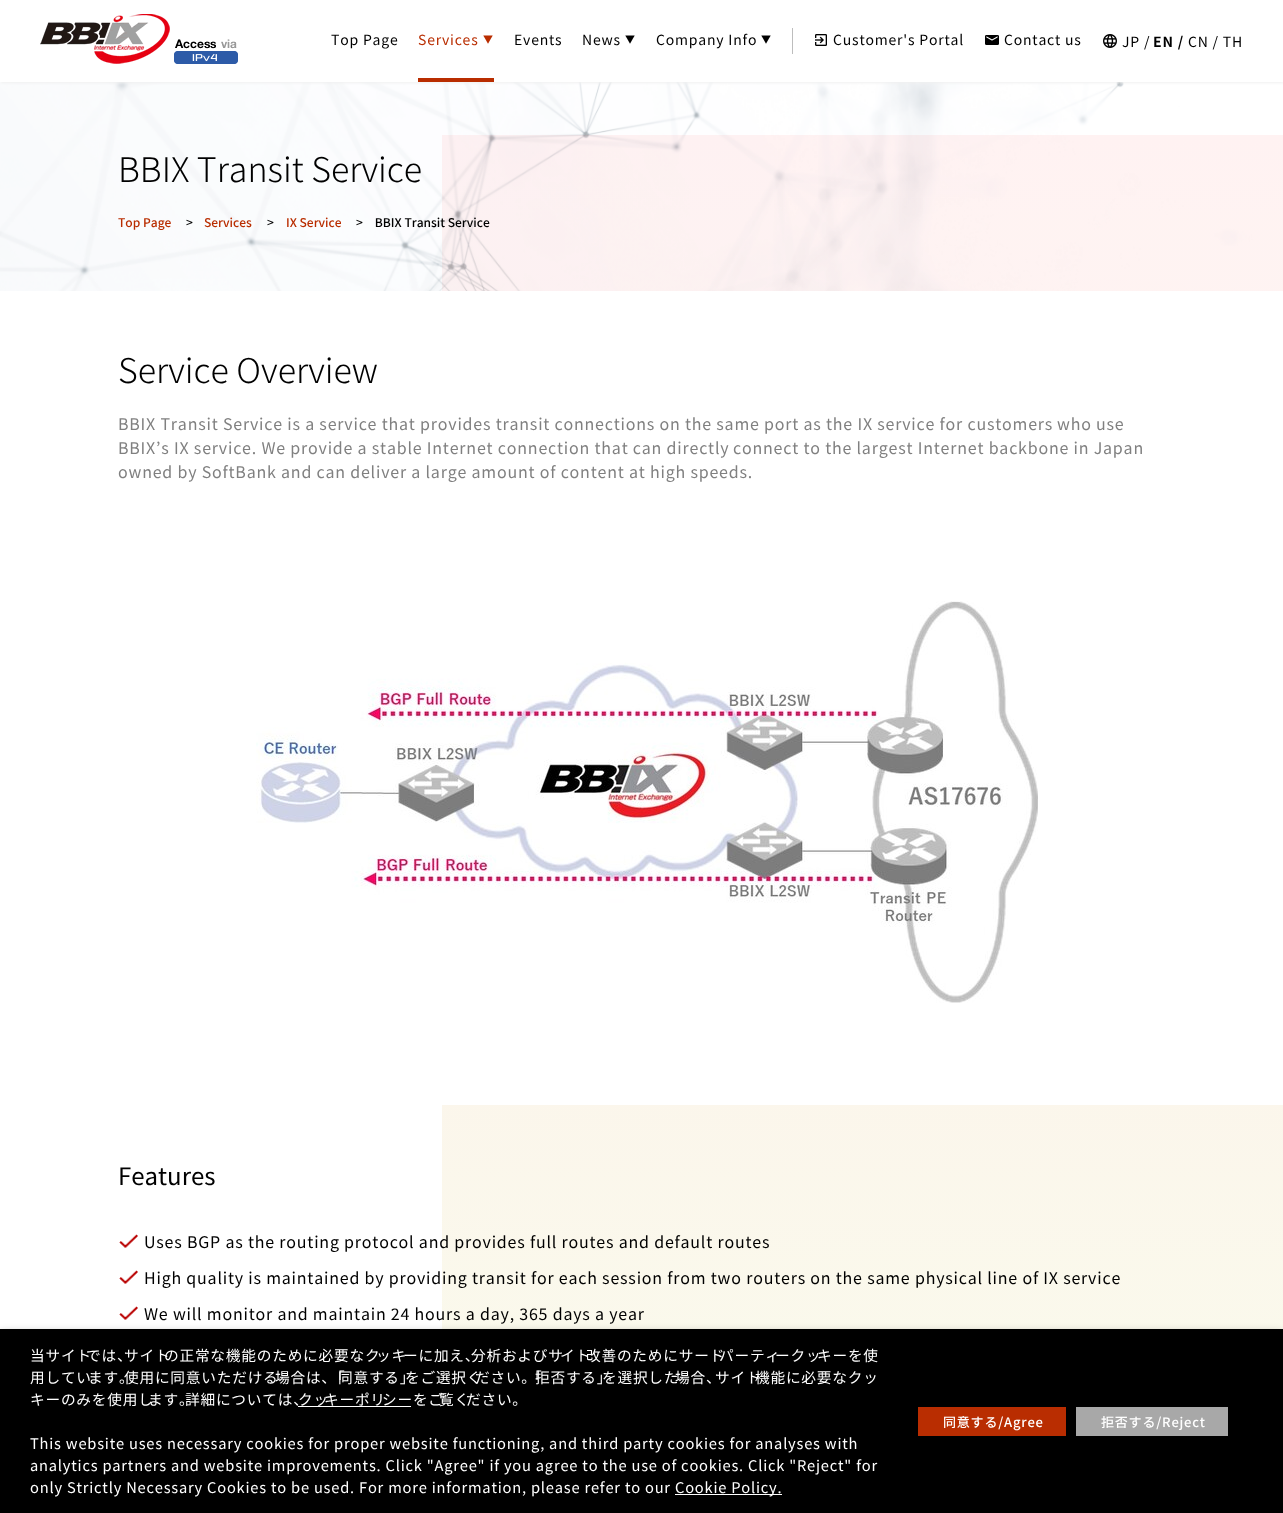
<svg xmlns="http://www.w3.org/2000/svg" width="1283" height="1513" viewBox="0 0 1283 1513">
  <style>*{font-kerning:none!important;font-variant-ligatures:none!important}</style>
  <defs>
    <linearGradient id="g1" gradientUnits="userSpaceOnUse" x1="862" y1="135" x2="863" y2="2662"><stop offset="0" stop-color="#ffeaea"/><stop offset="0.51" stop-color="#fafaec"/><stop offset="1" stop-color="#f6def6"/></linearGradient>
    <filter id="blur1" x="-50%" y="-200%" width="200%" height="500%"><feGaussianBlur stdDeviation="1.5"/></filter>
    <filter id="blur2" x="-50%" y="-200%" width="200%" height="500%"><feGaussianBlur stdDeviation="5"/></filter>
  </defs>
  <rect width="100%" height="100%" fill="#ffffff"/>
  <rect x="442" y="135" width="841" height="1194" fill="url(#g1)"/>
  <image x="0" y="82" width="1283" height="209" href="img6.png"/>
  <rect x="1" y="1" width="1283" height="82" fill="#f0f0f0" filter="url(#blur1)"/>
  <rect x="0" y="0" width="1283" height="82" fill="#ffffff"/>
  <image x="40" y="14" width="130" height="50" href="img1.png"/>
  <image x="174" y="39" width="64" height="25" href="img2.png"/>
  <text x="331" y="45" font-family="Noto Sans JP" font-size="14" letter-spacing="0.8" fill="#000000">Top Page</text>
  <text x="418" y="45" font-family="Noto Sans JP" font-size="14" letter-spacing="0.8" fill="#b92d00">Services</text>
  <rect x="418" y="78" width="76" height="4" fill="#b92d00"/>
  <text x="483" y="43" font-family="Noto Sans JP" font-size="10" letter-spacing="0.8" fill="#b92d00">▼</text>
  <text x="514" y="45" font-family="Noto Sans JP" font-size="14" letter-spacing="0.8" fill="#000000">Events</text>
  <text x="582" y="45" font-family="Noto Sans JP" font-size="14" letter-spacing="0.8" fill="#000000">News</text>
  <text x="625" y="43" font-family="Noto Sans JP" font-size="10" letter-spacing="0.8" fill="#000000">▼</text>
  <text x="656" y="45" font-family="Noto Sans JP" font-size="14" letter-spacing="0.8" fill="#000000">Company Info</text>
  <text x="761" y="43" font-family="Noto Sans JP" font-size="10" letter-spacing="0.8" fill="#000000">▼</text>
  <rect x="792" y="28" width="1" height="26" fill="#bdbdbd"/>
  <image x="815" y="34" width="12" height="12" href="img3.png"/>
  <text x="833" y="45" font-family="Noto Sans JP" font-size="14" letter-spacing="0.8" fill="#000000">Customer's Portal</text>
  <image x="985" y="35" width="14" height="10" href="img4.png"/>
  <text x="1004" y="45" font-family="Noto Sans JP" font-size="14" letter-spacing="0.8" fill="#000000">Contact us</text>
  <image x="1103" y="34" width="14" height="14" href="img5.png"/>
  <text x="1122" y="47" font-family="Noto Sans JP" font-size="14" letter-spacing="0.8" fill="#000000">JP /</text>
  <text x="1153" y="47" font-family="Noto Sans JP" font-size="14" font-weight="bold" letter-spacing="0.8" fill="#000000">EN /</text>
  <text x="1188" y="47" font-family="Noto Sans JP" font-size="14" letter-spacing="0.8" fill="#000000">CN / TH</text>
  <text x="118" y="182" font-family="Noto Sans JP" font-size="34" font-weight="300" fill="#000000">BBIX Transit Service</text>
  <text x="118" y="227" font-family="Noto Sans JP" font-size="12" font-weight="500" fill="#b92d00">Top Page</text>
  <text x="186" y="227" font-family="Noto Sans JP" font-size="12" font-weight="500" fill="#000000">&gt;</text>
  <text x="204" y="227" font-family="Noto Sans JP" font-size="12" font-weight="500" fill="#b92d00">Services</text>
  <text x="267" y="227" font-family="Noto Sans JP" font-size="12" font-weight="500" fill="#000000">&gt;</text>
  <text x="286" y="227" font-family="Noto Sans JP" font-size="12" font-weight="500" fill="#b92d00">IX Service</text>
  <text x="356" y="227" font-family="Noto Sans JP" font-size="12" font-weight="500" fill="#000000">&gt; BBIX Transit Service</text>
  <rect x="442" y="291" width="841" height="814" fill="#ffffff"/>
  <text x="118" y="383" font-family="Noto Sans JP" font-size="34" font-weight="300" fill="#000000">Service Overview</text>
  <text x="118" y="430" font-family="Noto Sans JP" font-size="16" letter-spacing="0.8" fill="#808080">BBIX Transit Service is a service that provides transit connections on the same port as the IX service for customers</text>
  <text x="1057" y="430" font-family="Noto Sans JP" font-size="16" letter-spacing="0.8" fill="#808080">who use</text>
  <text x="118" y="454" font-family="Noto Sans JP" font-size="16" letter-spacing="0.8" fill="#808080">BBIX’s IX service. We provide a stable Internet connection that can directly</text>
  <text x="733" y="454" font-family="Noto Sans JP" font-size="16" letter-spacing="0.8" fill="#808080">connect to the largest Internet backbone in Japan</text>
  <text x="118" y="478" font-family="Noto Sans JP" font-size="16" letter-spacing="0.8" fill="#808080">owned by SoftBank and can deliver a large amount of content at high speeds.</text>
  <image x="256" y="601" width="782" height="402" href="img7.png"/>
  <text x="118" y="1185" font-family="Noto Sans JP" font-size="24" fill="#000000">Features</text>
  <image x="119" y="1234" width="19" height="14" href="img8.png"/>
  <text x="144" y="1248" font-family="Noto Sans JP" font-size="16" letter-spacing="0.8" fill="#000000">Uses BGP as the routing protocol and provides full routes and default routes</text>
  <image x="119" y="1270" width="19" height="14" href="img8.png"/>
  <text x="144" y="1284" font-family="Noto Sans JP" font-size="16" letter-spacing="0.8" fill="#000000">High quality is maintained by providing transit for each session from two routers on the same physical line of IX service</text>
  <image x="119" y="1306" width="19" height="14" href="img8.png"/>
  <text x="144" y="1320" font-family="Noto Sans JP" font-size="16" letter-spacing="0.8" fill="#000000">We will monitor and maintain 24 hours a day, 365 days a year</text>
  <rect x="0" y="1334" width="1283" height="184" fill="#000000" fill-opacity="0.5" filter="url(#blur2)"/>
  <rect x="0" y="1329" width="1283" height="184" fill="#000000"/>
  <text x="30" y="1361" font-family="Noto Sans JP" font-size="14.67" letter-spacing="0.8" fill="#ffffff">当サイト</text>
  <text x="86" y="1361" font-family="Noto Sans JP" font-size="14.67" letter-spacing="0.8" fill="#ffffff">では、</text>
  <text x="124" y="1361" font-family="Noto Sans JP" font-size="14.67" letter-spacing="0.8" fill="#ffffff">サイト</text>
  <text x="164" y="1361" font-family="Noto Sans JP" font-size="14.67" letter-spacing="0.8" fill="#ffffff">の正常な機能のために必要なク</text>
  <text x="376" y="1361" font-family="Noto Sans JP" font-size="14.67" letter-spacing="0.8" fill="#ffffff">ッキ</text>
  <text x="403" y="1361" font-family="Noto Sans JP" font-size="14.67" letter-spacing="0.8" fill="#ffffff">ーに加え、</text>
  <text x="471" y="1361" font-family="Noto Sans JP" font-size="14.67" letter-spacing="0.8" fill="#ffffff">分析およびサ</text>
  <text x="560" y="1361" font-family="Noto Sans JP" font-size="14.67" letter-spacing="0.8" fill="#ffffff">イト</text>
  <text x="586" y="1361" font-family="Noto Sans JP" font-size="14.67" letter-spacing="0.8" fill="#ffffff">改善のためにサード</text>
  <text x="719" y="1361" font-family="Noto Sans JP" font-size="14.67" letter-spacing="0.8" fill="#ffffff">パーティ</text>
  <text x="775" y="1361" font-family="Noto Sans JP" font-size="14.67" letter-spacing="0.8" fill="#ffffff">ークッ</text>
  <text x="817" y="1361" font-family="Noto Sans JP" font-size="14.67" letter-spacing="0.8" fill="#ffffff">キーを使</text>
  <text x="30" y="1383" font-family="Noto Sans JP" font-size="14.67" letter-spacing="0.8" fill="#ffffff">用してい</text>
  <text x="88" y="1383" font-family="Noto Sans JP" font-size="14.67" letter-spacing="0.8" fill="#ffffff">ます。</text>
  <text x="124" y="1383" font-family="Noto Sans JP" font-size="14.67" letter-spacing="0.8" fill="#ffffff">使用に同意いただける</text>
  <text x="275" y="1383" font-family="Noto Sans JP" font-size="14.67" letter-spacing="0.8" fill="#ffffff">場合は、</text>
  <text x="330" y="1383" font-family="Noto Sans JP" font-size="14.67" letter-spacing="0.8" fill="#ffffff">「</text>
  <text x="338" y="1383" font-family="Noto Sans JP" font-size="14.67" letter-spacing="0.8" fill="#ffffff">同意する」</text>
  <text x="405" y="1383" font-family="Noto Sans JP" font-size="14.67" letter-spacing="0.8" fill="#ffffff">をご選択く</text>
  <text x="475" y="1383" font-family="Noto Sans JP" font-size="14.67" letter-spacing="0.8" fill="#ffffff">ださい。</text>
  <text x="527" y="1383" font-family="Noto Sans JP" font-size="14.67" letter-spacing="0.8" fill="#ffffff">「</text>
  <text x="535" y="1383" font-family="Noto Sans JP" font-size="14.67" letter-spacing="0.8" fill="#ffffff">拒否する」</text>
  <text x="602" y="1383" font-family="Noto Sans JP" font-size="14.67" letter-spacing="0.8" fill="#ffffff">を選択した</text>
  <text x="675" y="1383" font-family="Noto Sans JP" font-size="14.67" letter-spacing="0.8" fill="#ffffff">場合、</text>
  <text x="715" y="1383" font-family="Noto Sans JP" font-size="14.67" letter-spacing="0.8" fill="#ffffff">サイト</text>
  <text x="755" y="1383" font-family="Noto Sans JP" font-size="14.67" letter-spacing="0.8" fill="#ffffff">機能に必要なクッ</text>
  <text x="30" y="1405" font-family="Noto Sans JP" font-size="14.67" letter-spacing="0.8" fill="#ffffff">キーのみを使用し</text>
  <text x="148" y="1405" font-family="Noto Sans JP" font-size="14.67" letter-spacing="0.8" fill="#ffffff">ます。</text>
  <text x="185" y="1405" font-family="Noto Sans JP" font-size="14.67" letter-spacing="0.8" fill="#ffffff">詳細については、</text>
  <rect x="298" y="1406" width="113" height="1" fill="#ffffff"/>
  <text x="298" y="1405" font-family="Noto Sans JP" font-size="14.67" letter-spacing="0.8" fill="#ffffff">クッ</text>
  <text x="324" y="1405" font-family="Noto Sans JP" font-size="14.67" letter-spacing="0.8" fill="#ffffff">キーポリ</text>
  <text x="382" y="1405" font-family="Noto Sans JP" font-size="14.67" letter-spacing="0.8" fill="#ffffff">シーをご</text>
  <text x="439" y="1405" font-family="Noto Sans JP" font-size="14.67" letter-spacing="0.8" fill="#ffffff">覧く</text>
  <text x="466" y="1405" font-family="Noto Sans JP" font-size="14.67" letter-spacing="0.8" fill="#ffffff">ださい。</text>
  <text x="30" y="1449" font-family="Noto Sans JP" font-size="14.67" letter-spacing="0.8" fill="#ffffff">This website uses necessary cookies for proper website functioning, and third party cookies for analyses with</text>
  <text x="30" y="1471" font-family="Noto Sans JP" font-size="14.67" letter-spacing="0.8" fill="#ffffff">analytics partners and website improvements. Click "Agree" if you agree to the use of cookies. Click "Reject" for</text>
  <text x="30" y="1493" font-family="Noto Sans JP" font-size="14.67" letter-spacing="0.8" fill="#ffffff">only Strictly Necessary Cookies to be used. For more information, please refer to our</text>
  <rect x="675" y="1494" width="107" height="1" fill="#ffffff"/>
  <text x="675" y="1493" font-family="Noto Sans JP" font-size="14.67" letter-spacing="0.8" fill="#ffffff">Cookie Policy.</text>
  <rect x="918" y="1407" width="148" height="29" fill="#b92d01"/>
  <text x="943" y="1427" font-family="Noto Sans JP" font-size="13" font-weight="500" letter-spacing="0.8" fill="#ffffff">同意する/Agree</text>
  <rect x="1076" y="1407" width="152" height="29" fill="#a8a8a8"/>
  <text x="1101" y="1427" font-family="Noto Sans JP" font-size="13" font-weight="500" letter-spacing="0.8" fill="#ffffff">拒否する/Reject</text>
</svg>
